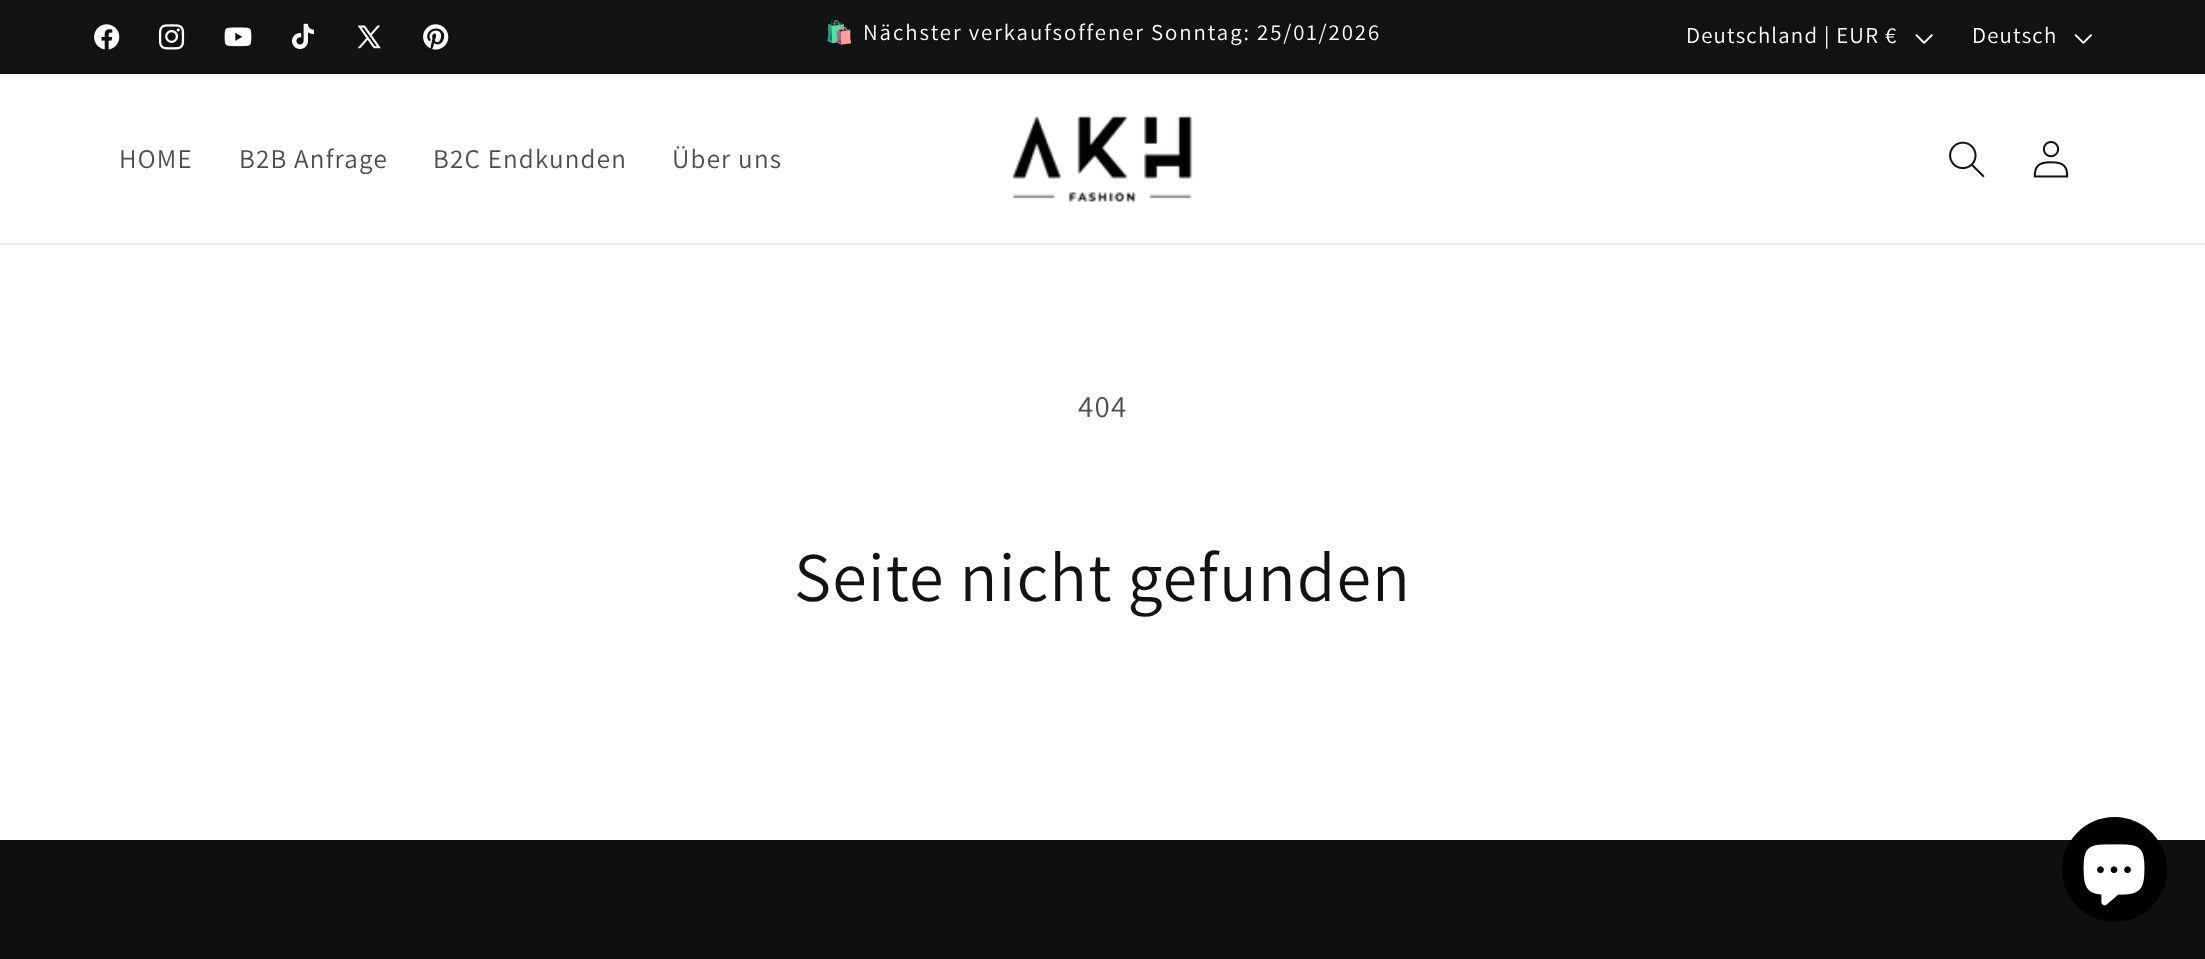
<svg xmlns="http://www.w3.org/2000/svg" width="2205" height="959" viewBox="0 0 2205 959">
  <rect width="100%" height="100%" fill="#ffffff"/>
  <rect x="0" y="0" width="2205" height="74" fill="#121212"/>
  <image x="94" y="24" width="26" height="26" href="img1.png"/>
  <image x="158" y="24" width="27" height="26" href="img2.png"/>
  <image x="224" y="27" width="28" height="20" href="img3.png"/>
  <image x="292" y="23" width="22" height="26" href="img4.png"/>
  <image x="357" y="25" width="24" height="24" href="img5.png"/>
  <image x="423" y="24" width="26" height="26" href="img6.png"/>
  <text x="825" y="40" font-family="Noto Color Emoji" font-size="22.75" letter-spacing="1.95" fill="#ffffff">🛍️</text>
  <text x="863" y="40" word-spacing="-0.5" font-family="Assistant" font-size="22.75" letter-spacing="1.95" fill="#ffffff">Nächster verkaufsoffener Sonntag: 25/01/2026</text>
  <text x="1686" y="43" font-family="Assistant" font-size="22.75" letter-spacing="1.2" fill="#ffffff">Deutschland | EUR €</text>
  <image x="1915" y="34" width="18" height="10" href="img7.png"/>
  <text x="1972" y="43" font-family="Assistant" font-size="22.75" letter-spacing="1.2" fill="#ffffff">Deutsch</text>
  <image x="2074" y="34" width="18" height="10" href="img8.png"/>
  <rect x="0" y="243" width="2205" height="2" fill="#ececec"/>
  <text x="119" y="168" font-family="Assistant" font-size="27" letter-spacing="1.2" fill="#4d4d4d">HOME</text>
  <text x="239" y="168" font-family="Assistant" font-size="27" letter-spacing="1.2" fill="#4d4d4d">B2B Anfrage</text>
  <text x="433" y="168" font-family="Assistant" font-size="27" letter-spacing="1.2" fill="#4d4d4d">B2C Endkunden</text>
  <text x="672" y="168" font-family="Assistant" font-size="27" letter-spacing="1.2" fill="#4d4d4d">Über uns</text>
  <image x="1012" y="115" width="181" height="87" href="img9.png"/>
  <image x="1949" y="141" width="36" height="37" href="img10.png"/>
  <image x="2033" y="141" width="36" height="37" href="img11.png"/>
  <text x="1078" y="417" font-family="Assistant" font-size="31" letter-spacing="1.2" fill="#4d4d4d">404</text>
  <text x="794" y="601" font-family="Assistant" font-size="70" letter-spacing="1.05" fill="#121212">Seite nicht gefunden</text>
  <rect x="0" y="840" width="2205" height="119" fill="#0f0f0f"/>
  <circle cx="2114.5" cy="869.5" r="52.5" fill="#000000"/>
  <image x="2083" y="844" width="62" height="62" href="img12.png"/>
</svg>
